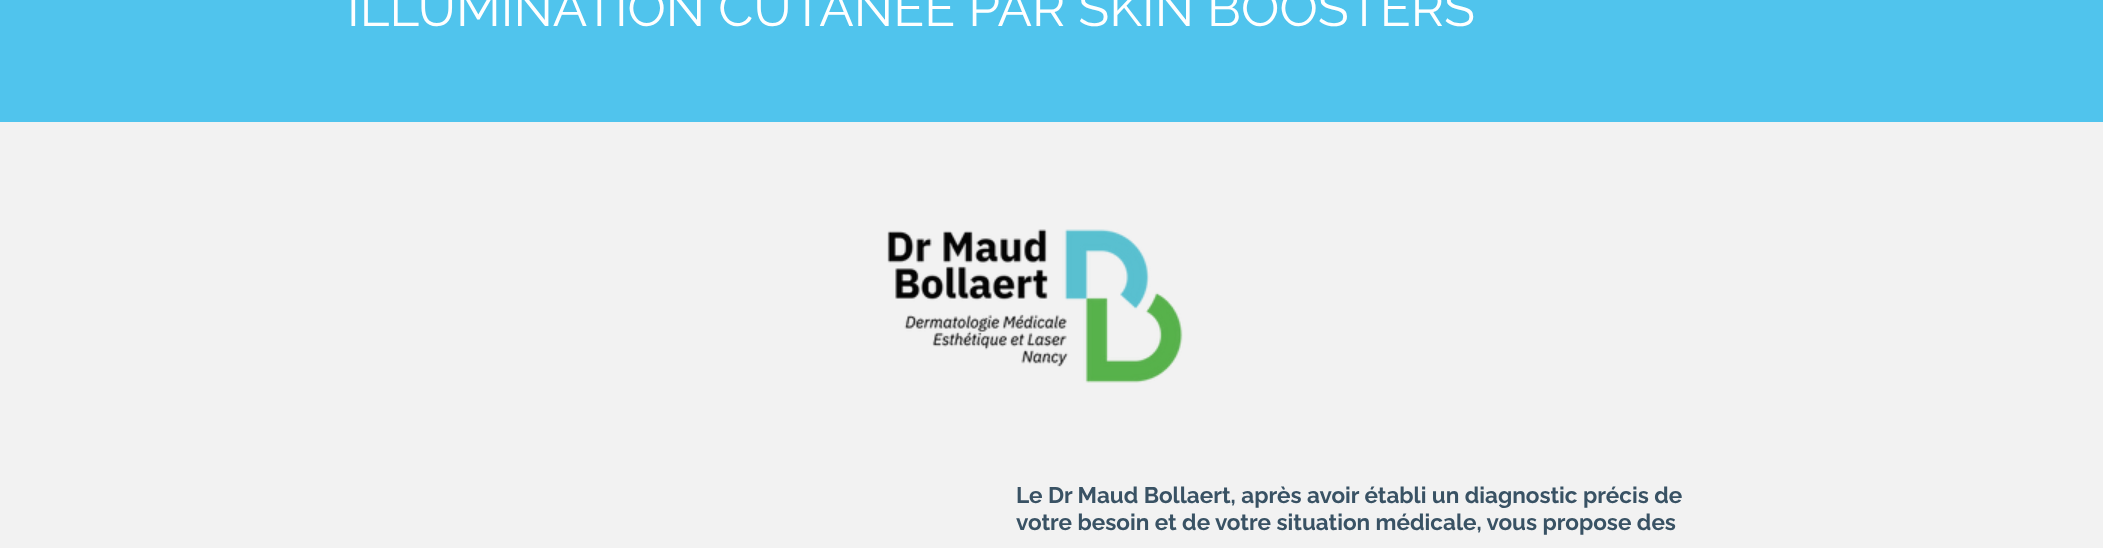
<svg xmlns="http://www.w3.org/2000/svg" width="2103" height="548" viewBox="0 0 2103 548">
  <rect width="100%" height="100%" fill="#50c4ed"/>
  <text x="347" y="26" font-family="Raleway" font-size="51" fill="#ffffff">ILLUMINATION CUTANÉE PAR SKIN BOOSTERS</text>
  <rect x="0" y="122" width="2103" height="426" fill="#f2f2f2"/>
  <image x="887" y="229" width="296" height="154" href="img1.png"/>
  <text x="1016" y="503" font-family="Raleway" font-size="22.5" font-weight="bold" fill="#395264">Le Dr Maud Bollaert, après avoir établi un diagnostic précis de</text>
  <text x="1016" y="530" font-family="Raleway" font-size="22.5" font-weight="bold" fill="#395264">votre besoin et de votre situation médicale, vous propose des</text>
</svg>
